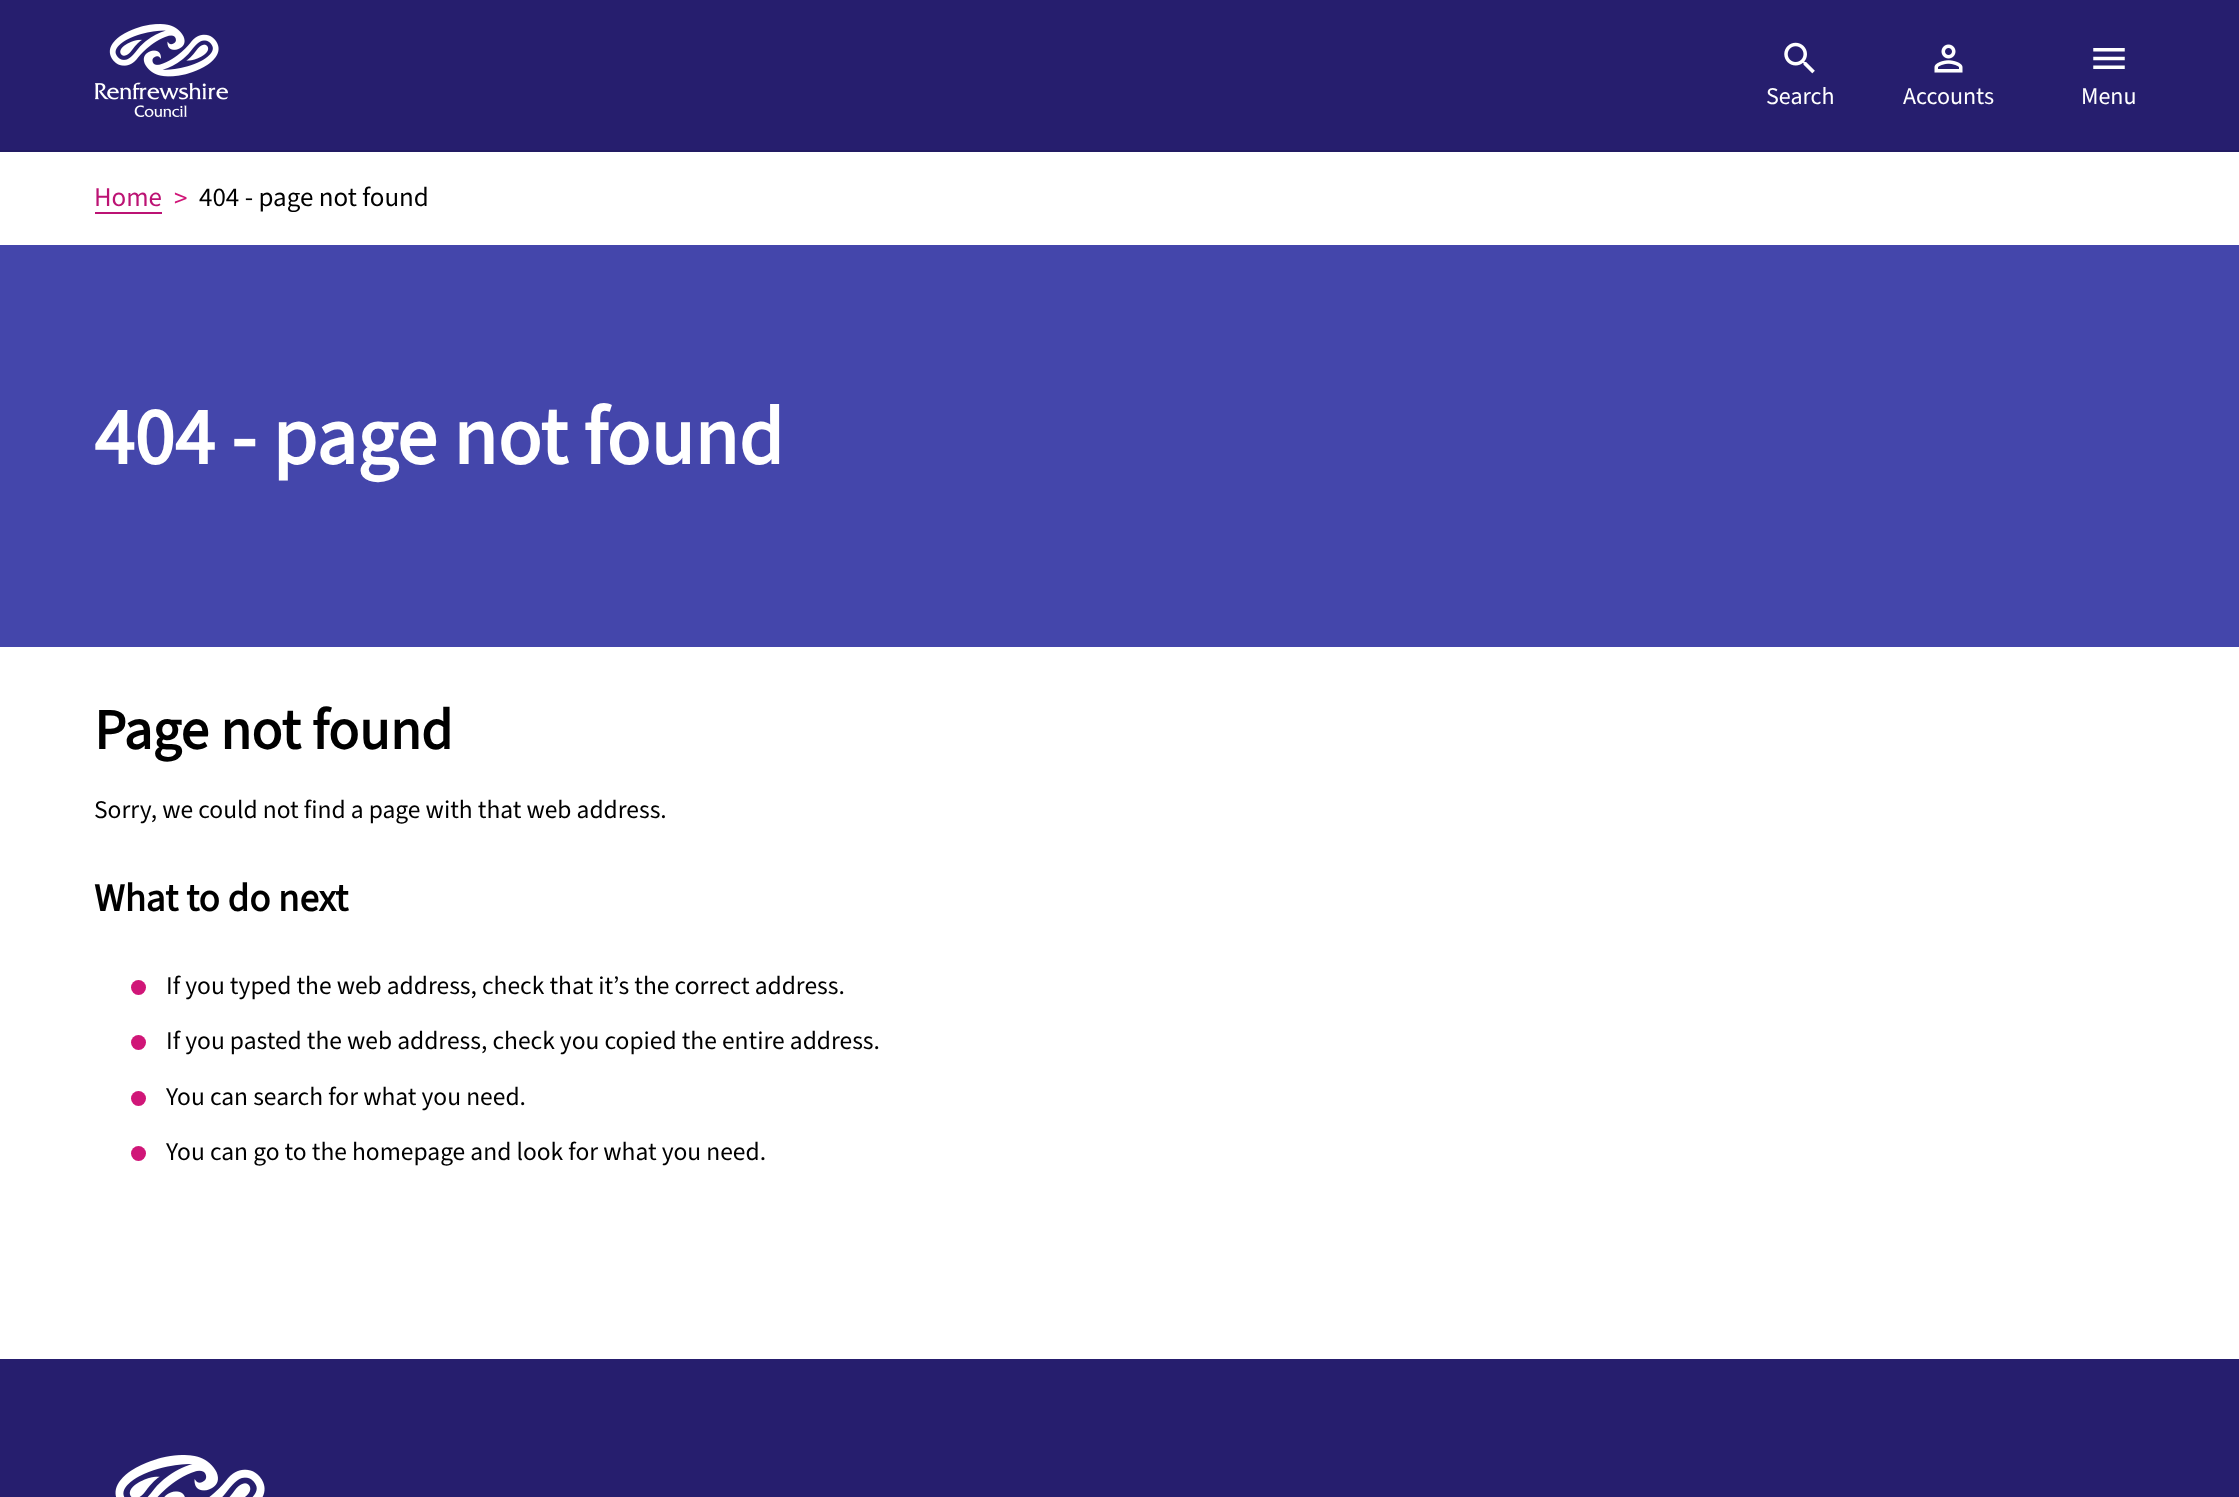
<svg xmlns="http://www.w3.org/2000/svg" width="2239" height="1497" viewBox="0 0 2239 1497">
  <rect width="100%" height="100%" fill="#ffffff"/>
  <rect x="0" y="0" width="2239" height="150" fill="#261e6e"/>
  <rect x="0" y="150" width="2239" height="2" fill="#221b63"/>
  <image x="95" y="24" width="133" height="93" href="img1.png"/>
  <image x="1784" y="42" width="31" height="32" href="img2.png"/>
  <text x="1766" y="104" font-family="'Source Sans 3'" font-size="24" font-weight="200" fill="#ffffff">Search</text>
  <image x="1934" y="44" width="29" height="29" href="img3.png"/>
  <text x="1903" y="104" font-family="'Source Sans 3'" font-size="24" font-weight="200" fill="#ffffff">Accounts</text>
  <image x="2093" y="48" width="32" height="21" href="img4.png"/>
  <text x="2081" y="104" font-family="'Source Sans 3'" font-size="24" font-weight="200" fill="#ffffff">Menu</text>
  <text x="94" y="206" font-family="'Source Sans 3'" font-size="27" font-weight="200" fill="#bc1374">Home</text>
  <rect x="95" y="212" width="67" height="2" fill="#bc1374"/>
  <text x="174" y="207" font-family="'Source Sans 3'" font-size="27" font-weight="200" fill="#d01678">&gt;</text>
  <text x="199" y="206" font-family="'Source Sans 3'" font-size="27" font-weight="200" fill="#000000">404 - page not found</text>
  <rect x="0" y="245" width="2239" height="402" fill="#4446ab"/>
  <text x="94" y="464" font-family="'Source Sans 3'" font-size="81" font-weight="bold" fill="#ffffff">404 - page not found</text>
  <text x="94" y="749" font-family="'Source Sans 3'" font-size="57" font-weight="bold" fill="#000000">Page not found</text>
  <text x="94" y="818" font-family="'Source Sans 3'" font-size="25.5" font-weight="200" fill="#000000">Sorry, we could not find a page with that web address.</text>
  <text x="94" y="911" font-family="'Source Sans 3'" font-size="39" font-weight="bold" fill="#000000">What to do next</text>
  <circle cx="138.5" cy="987.5" r="7.5" fill="#d01678"/>
  <text x="166" y="994" font-family="'Source Sans 3'" font-size="25.5" font-weight="200" fill="#000000">If you typed the web address, check that it’s the correct address.</text>
  <circle cx="138.5" cy="1042.5" r="7.5" fill="#d01678"/>
  <text x="166" y="1049" font-family="'Source Sans 3'" font-size="25.5" font-weight="200" fill="#000000">If you pasted the web address, check you copied the entire address.</text>
  <circle cx="138.5" cy="1098.5" r="7.5" fill="#d01678"/>
  <text x="166" y="1105" font-family="'Source Sans 3'" font-size="25.5" font-weight="200" fill="#000000">You can search for what you need.</text>
  <circle cx="138.5" cy="1153.5" r="7.5" fill="#d01678"/>
  <text x="166" y="1160" font-family="'Source Sans 3'" font-size="25.5" font-weight="200" fill="#000000">You can go to the homepage and look for what you need.</text>
  <rect x="0" y="1359" width="2239" height="138" fill="#261e6e"/>
  <image x="115" y="1455" width="150" height="42" href="img5.png"/>
</svg>
